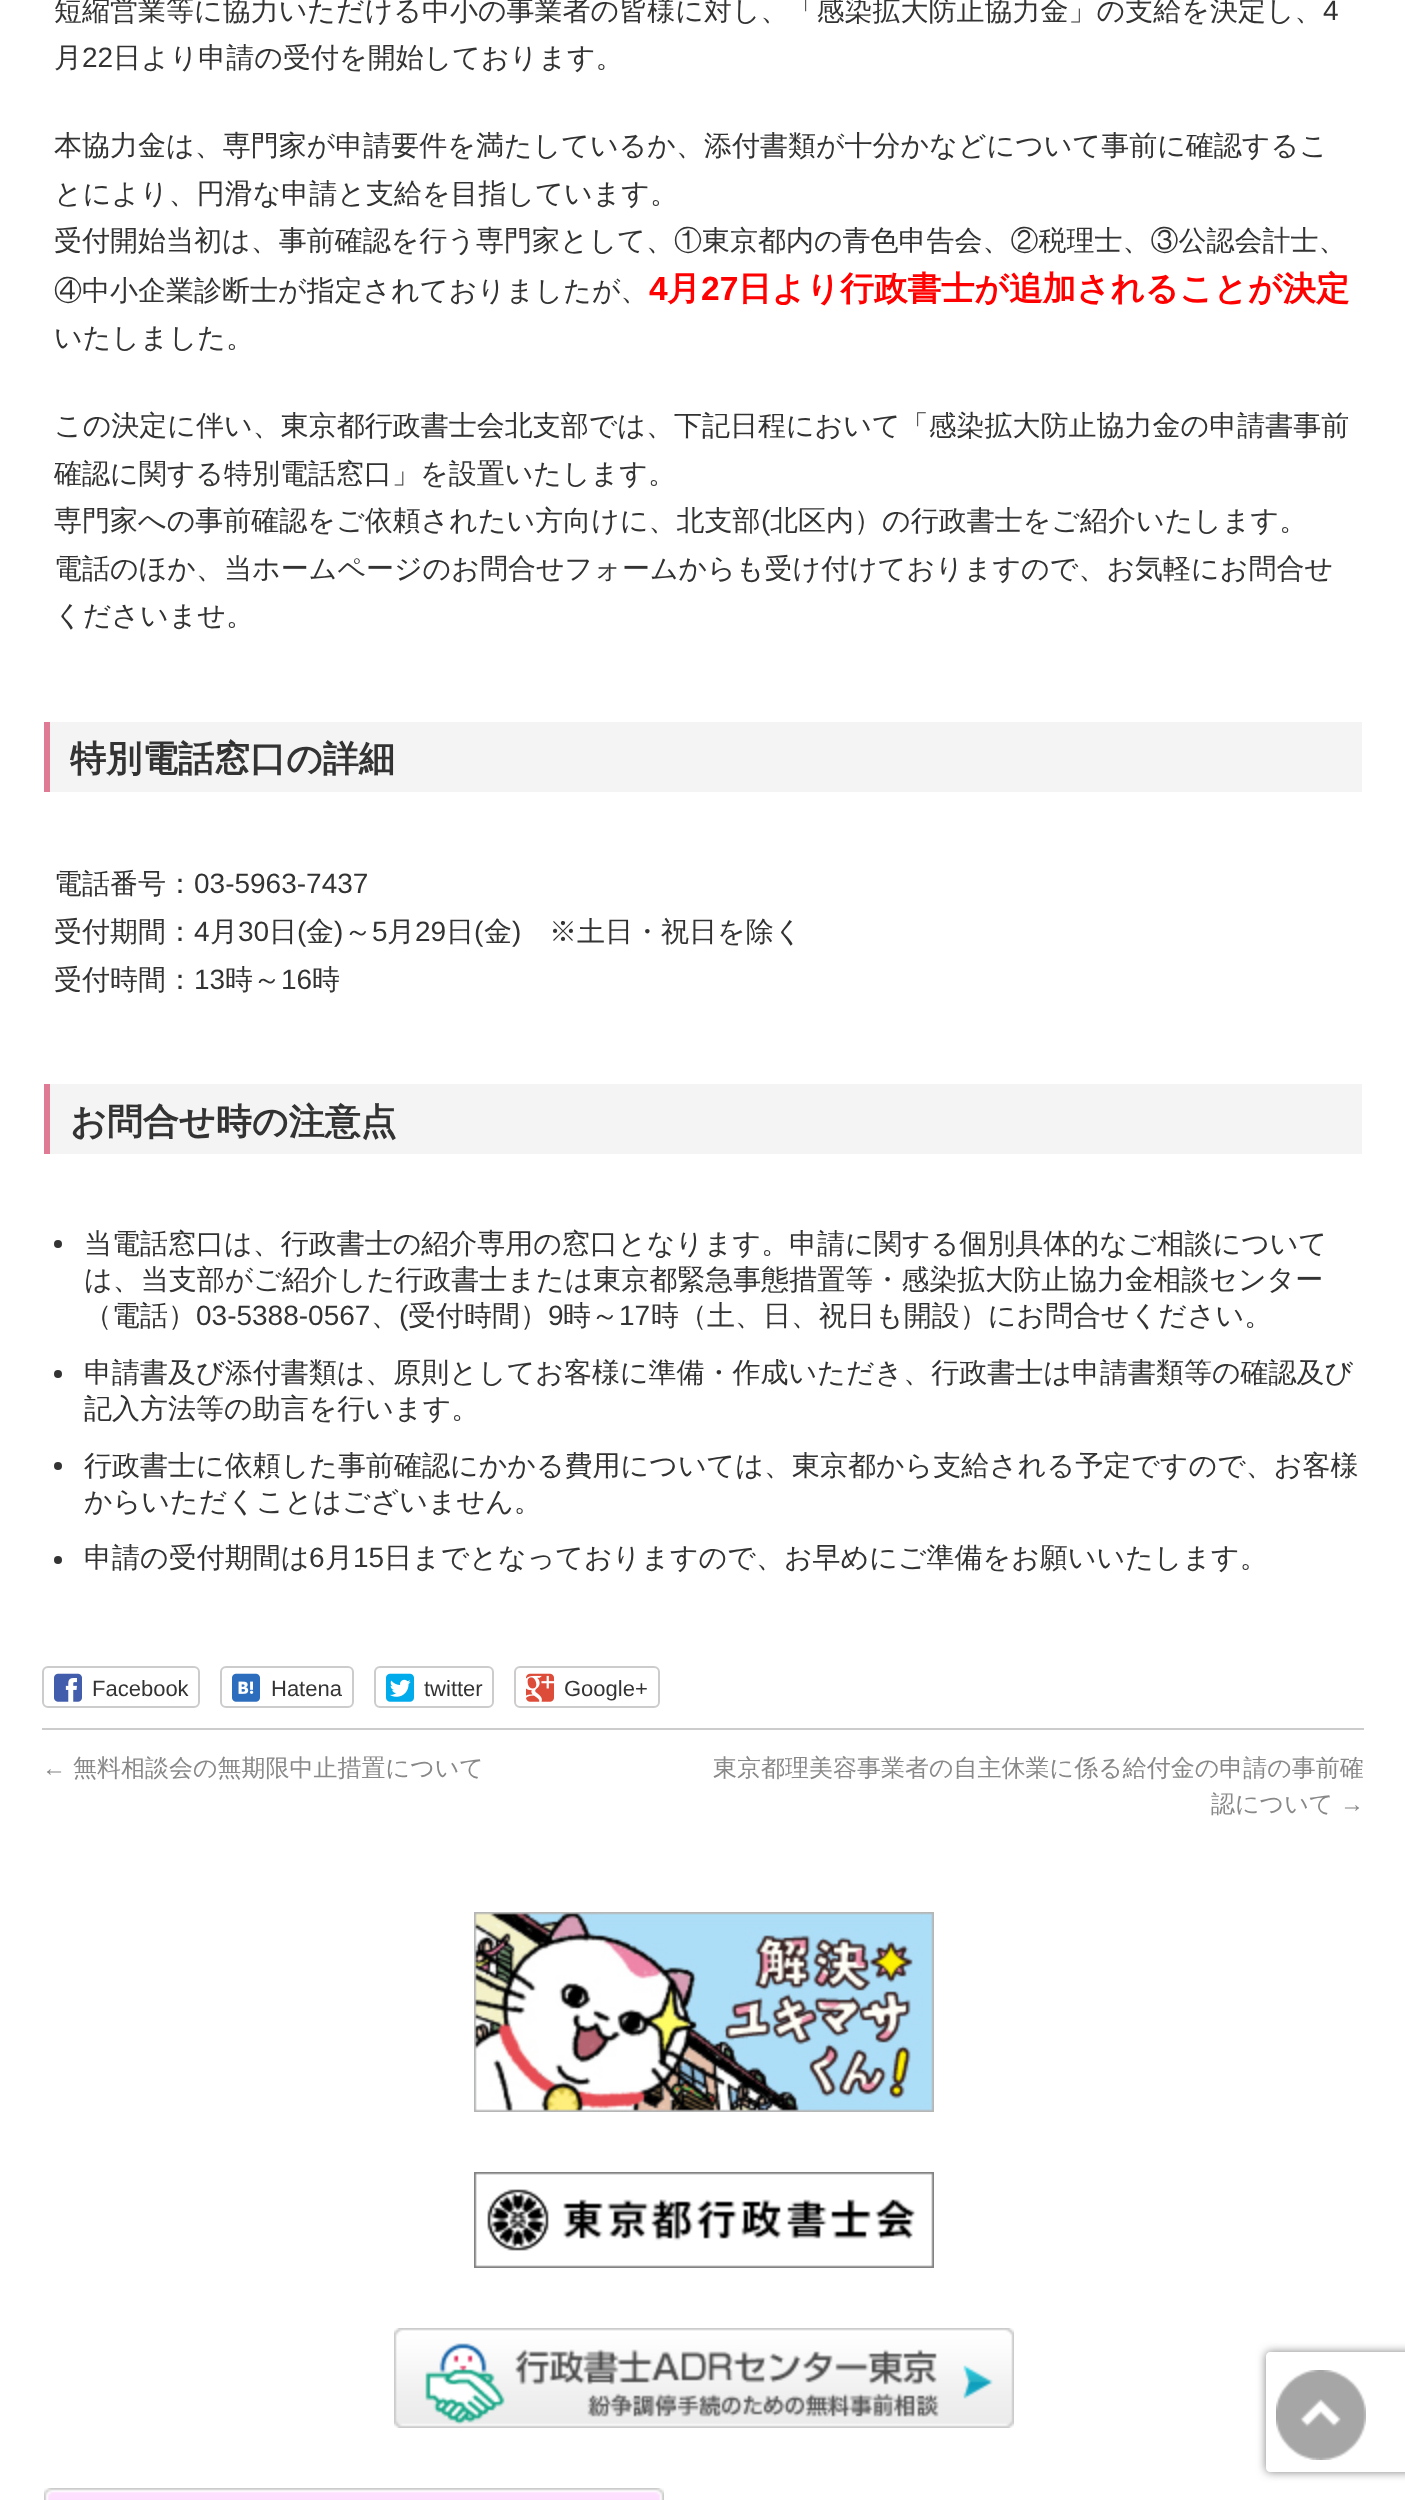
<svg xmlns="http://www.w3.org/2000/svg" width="1405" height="2500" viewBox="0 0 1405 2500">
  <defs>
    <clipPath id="clip1"><path d="M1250 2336H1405V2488H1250ZM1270 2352H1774C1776 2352 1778 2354 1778 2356V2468C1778 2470 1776 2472 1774 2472H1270C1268 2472 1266 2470 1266 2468V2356C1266 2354 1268 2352 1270 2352Z" clip-rule="evenodd"/></clipPath>
    <filter id="blur1" x="-50%" y="-200%" width="200%" height="500%"><feGaussianBlur stdDeviation="5"/></filter>
  </defs>
  <rect width="100%" height="100%" fill="#ffffff"/>
  <text x="54" y="20" font-family="WenQuanYi Zen Hei" font-size="28" font-weight="500" fill="#333333">短縮営業等に協力いただける中小の事業者の皆様に対し、「感染拡大防止協力金」の支給を決定し、</text>
  <text x="1323" y="20" font-family="Liberation Sans" font-size="28" fill="#333333">4</text>
  <text x="54" y="67" font-family="WenQuanYi Zen Hei" font-size="28" font-weight="500" fill="#333333">月</text>
  <text x="82" y="67" font-family="Liberation Sans" font-size="28" fill="#333333">22</text>
  <text x="113" y="67" font-family="WenQuanYi Zen Hei" font-size="28" font-weight="500" fill="#333333">日より申請の受付を開始しております。</text>
  <text x="54" y="155" font-family="WenQuanYi Zen Hei" font-size="28" font-weight="500" fill="#333333">本協力金は、専門家が申請要件を満たしているか、添付書類が十分かなどについて事前に確認するこ</text>
  <text x="54" y="203" font-family="WenQuanYi Zen Hei" font-size="28" font-weight="500" fill="#333333">とにより、円滑な申請と支給を目指しています。</text>
  <text x="54" y="250" font-family="WenQuanYi Zen Hei" font-size="28" font-weight="500" fill="#333333">受付開始当初は、事前確認を行う専門家として、①東京都内の青色申告会、②税理士、③公認会計士、</text>
  <text x="54" y="300" font-family="WenQuanYi Zen Hei" font-size="28" font-weight="500" fill="#333333">④中小企業診断士が指定されておりましたが、</text>
  <text x="649" y="300" font-family="Liberation Sans" font-size="33.6" font-weight="bold" fill="#ff0000">4</text>
  <text x="667" y="300" font-family="WenQuanYi Zen Hei" font-size="33.6" font-weight="bold" fill="#ff0000">月</text>
  <text x="701" y="300" font-family="Liberation Sans" font-size="33.6" font-weight="bold" fill="#ff0000">27</text>
  <text x="738" y="300" font-family="WenQuanYi Zen Hei" font-size="33.6" font-weight="bold" fill="#ff0000">日より行政書士が追加されることが決定</text>
  <text x="54" y="347" font-family="WenQuanYi Zen Hei" font-size="28" font-weight="500" fill="#333333">いたしました。</text>
  <text x="54" y="435" font-family="WenQuanYi Zen Hei" font-size="28" font-weight="500" fill="#333333">この決定に伴い、東京都行政書士会北支部では、下記日程において「感染拡大防止協力金の申請書事前</text>
  <text x="54" y="483" font-family="WenQuanYi Zen Hei" font-size="28" font-weight="500" fill="#333333">確認に関する特別電話窓口」を設置いたします。</text>
  <text x="54" y="530" font-family="WenQuanYi Zen Hei" font-size="28" font-weight="500" fill="#333333">専門家への事前確認をご依頼されたい方向けに、北支部</text>
  <text x="761" y="530" font-family="Liberation Sans" font-size="28" fill="#333333">(</text>
  <text x="770" y="530" font-family="WenQuanYi Zen Hei" font-size="28" font-weight="500" fill="#333333">北区内）の行政書士をご紹介いたします。</text>
  <text x="54" y="578" font-family="WenQuanYi Zen Hei" font-size="28" font-weight="500" fill="#333333">電話のほか、当ホームページのお問合せフォームからも受け付けておりますので、お気軽にお問合せ</text>
  <text x="54" y="625" font-family="WenQuanYi Zen Hei" font-size="28" font-weight="500" fill="#333333">くださいませ。</text>
  <rect x="50" y="722" width="1312" height="70" fill="#f4f4f4"/>
  <rect x="44" y="722" width="6" height="70" fill="#e07b96"/>
  <text x="70" y="771" font-family="WenQuanYi Zen Hei" font-size="36" font-weight="bold" fill="#333333">特別電話窓口の詳細</text>
  <text x="54" y="893" font-family="WenQuanYi Zen Hei" font-size="28" font-weight="500" fill="#333333">電話番号：</text>
  <text x="194" y="893" font-family="Liberation Sans" font-size="28" fill="#333333">03-5963-7437</text>
  <text x="54" y="941" font-family="WenQuanYi Zen Hei" font-size="28" font-weight="500" fill="#333333">受付期間：</text>
  <text x="194" y="941" font-family="Liberation Sans" font-size="28" fill="#333333">4</text>
  <text x="210" y="941" font-family="WenQuanYi Zen Hei" font-size="28" font-weight="500" fill="#333333">月</text>
  <text x="238" y="941" font-family="Liberation Sans" font-size="28" fill="#333333">30</text>
  <text x="269" y="941" font-family="WenQuanYi Zen Hei" font-size="28" font-weight="500" fill="#333333">日</text>
  <text x="297" y="941" font-family="Liberation Sans" font-size="28" fill="#333333">(</text>
  <text x="306" y="941" font-family="WenQuanYi Zen Hei" font-size="28" font-weight="500" fill="#333333">金</text>
  <text x="334" y="941" font-family="Liberation Sans" font-size="28" fill="#333333">)</text>
  <text x="344" y="941" font-family="WenQuanYi Zen Hei" font-size="28" font-weight="500" fill="#333333">～</text>
  <text x="372" y="941" font-family="Liberation Sans" font-size="28" fill="#333333">5</text>
  <text x="387" y="941" font-family="WenQuanYi Zen Hei" font-size="28" font-weight="500" fill="#333333">月</text>
  <text x="415" y="941" font-family="Liberation Sans" font-size="28" fill="#333333">29</text>
  <text x="446" y="941" font-family="WenQuanYi Zen Hei" font-size="28" font-weight="500" fill="#333333">日</text>
  <text x="474" y="941" font-family="Liberation Sans" font-size="28" fill="#333333">(</text>
  <text x="484" y="941" font-family="WenQuanYi Zen Hei" font-size="28" font-weight="500" fill="#333333">金</text>
  <text x="512" y="941" font-family="Liberation Sans" font-size="28" fill="#333333">)</text>
  <text x="549" y="941" font-family="WenQuanYi Zen Hei" font-size="28" font-weight="500" fill="#333333">※土日・祝日を除く</text>
  <text x="54" y="989" font-family="WenQuanYi Zen Hei" font-size="28" font-weight="500" fill="#333333">受付時間：</text>
  <text x="194" y="989" font-family="Liberation Sans" font-size="28" fill="#333333">13</text>
  <text x="225" y="989" font-family="WenQuanYi Zen Hei" font-size="28" font-weight="500" fill="#333333">時～</text>
  <text x="281" y="989" font-family="Liberation Sans" font-size="28" fill="#333333">16</text>
  <text x="312" y="989" font-family="WenQuanYi Zen Hei" font-size="28" font-weight="500" fill="#333333">時</text>
  <rect x="50" y="1084" width="1312" height="70" fill="#f4f4f4"/>
  <rect x="44" y="1084" width="6" height="70" fill="#e07b96"/>
  <text x="70" y="1134" font-family="WenQuanYi Zen Hei" font-size="36" font-weight="bold" fill="#333333">お問合せ時の注意点</text>
  <circle cx="58" cy="1244" r="4" fill="#333333"/>
  <text x="84" y="1253" font-family="WenQuanYi Zen Hei" font-size="28" font-weight="500" fill="#333333">当電話窓口は、行政書士の紹介専用の窓口となります。申請に関する個別具体的なご相談について</text>
  <text x="84" y="1289" font-family="WenQuanYi Zen Hei" font-size="28" font-weight="500" fill="#333333">は、当支部がご紹介した行政書士または東京都緊急事態措置等・感染拡大防止協力金相談センター</text>
  <text x="84" y="1325" font-family="WenQuanYi Zen Hei" font-size="28" font-weight="500" fill="#333333">（電話）</text>
  <text x="196" y="1325" font-family="Liberation Sans" font-size="28" fill="#333333">03-5388-0567</text>
  <text x="371" y="1325" font-family="WenQuanYi Zen Hei" font-size="28" font-weight="500" fill="#333333">、</text>
  <text x="399" y="1325" font-family="Liberation Sans" font-size="28" fill="#333333">(</text>
  <text x="408" y="1325" font-family="WenQuanYi Zen Hei" font-size="28" font-weight="500" fill="#333333">受付時間）</text>
  <text x="548" y="1325" font-family="Liberation Sans" font-size="28" fill="#333333">9</text>
  <text x="563" y="1325" font-family="WenQuanYi Zen Hei" font-size="28" font-weight="500" fill="#333333">時～</text>
  <text x="619" y="1325" font-family="Liberation Sans" font-size="28" fill="#333333">17</text>
  <text x="651" y="1325" font-family="WenQuanYi Zen Hei" font-size="28" font-weight="500" fill="#333333">時（土、日、祝日も開設）にお問合せください。</text>
  <circle cx="58" cy="1374" r="4" fill="#333333"/>
  <text x="84" y="1382" font-family="WenQuanYi Zen Hei" font-size="28" font-weight="500" fill="#333333">申請書及び添付書類は、原則としてお客様に準備・作成いただき、行政書士は申請書類等の確認及び</text>
  <text x="84" y="1418" font-family="WenQuanYi Zen Hei" font-size="28" font-weight="500" fill="#333333">記入方法等の助言を行います。</text>
  <circle cx="58" cy="1466" r="4" fill="#333333"/>
  <text x="84" y="1475" font-family="WenQuanYi Zen Hei" font-size="28" font-weight="500" fill="#333333">行政書士に依頼した事前確認にかかる費用については、東京都から支給される予定ですので、お客様</text>
  <text x="84" y="1511" font-family="WenQuanYi Zen Hei" font-size="28" font-weight="500" fill="#333333">からいただくことはございません。</text>
  <circle cx="58" cy="1560" r="4" fill="#333333"/>
  <text x="84" y="1567" font-family="WenQuanYi Zen Hei" font-size="28" font-weight="500" fill="#333333">申請の受付期間は</text>
  <text x="309" y="1567" font-family="Liberation Sans" font-size="28" fill="#333333">6</text>
  <text x="325" y="1567" font-family="WenQuanYi Zen Hei" font-size="28" font-weight="500" fill="#333333">月</text>
  <text x="353" y="1567" font-family="Liberation Sans" font-size="28" fill="#333333">15</text>
  <text x="384" y="1567" font-family="WenQuanYi Zen Hei" font-size="28" font-weight="500" fill="#333333">日までとなっておりますので、お早めにご準備をお願いいたします。</text>
  <rect x="43" y="1667" width="156" height="40" rx="5" fill="none" stroke="#cccccc" stroke-width="2"/>
  <image x="54" y="1673" width="28" height="29" href="img1.png"/>
  <text x="92" y="1696" font-family="Liberation Sans" font-size="22" fill="#333333">Facebook</text>
  <rect x="221" y="1667" width="132" height="40" rx="5" fill="none" stroke="#cccccc" stroke-width="2"/>
  <image x="232" y="1673" width="28" height="29" href="img2.png"/>
  <text x="271" y="1696" font-family="Liberation Sans" font-size="22" fill="#333333">Hatena</text>
  <rect x="375" y="1667" width="118" height="40" rx="5" fill="none" stroke="#cccccc" stroke-width="2"/>
  <image x="386" y="1673" width="28" height="29" href="img3.png"/>
  <text x="424" y="1696" font-family="Liberation Sans" font-size="22" fill="#333333">twitter</text>
  <rect x="515" y="1667" width="144" height="40" rx="5" fill="none" stroke="#cccccc" stroke-width="2"/>
  <image x="526" y="1673" width="28" height="29" href="img4.png"/>
  <text x="564" y="1696" font-family="Liberation Sans" font-size="22" fill="#333333">Google+</text>
  <rect x="42" y="1728" width="1322" height="2" fill="#cccccc"/>
  <text x="42" y="1776" font-family="Liberation Sans" font-size="24" fill="#888888">←</text>
  <text x="73" y="1776" font-family="WenQuanYi Zen Hei" font-size="24" font-weight="500" fill="#888888">無料相談会の無期限中止措置について</text>
  <text x="713" y="1776" font-family="WenQuanYi Zen Hei" font-size="24" font-weight="500" fill="#888888">東京都理美容事業者の自主休業に係る給付金の申請の事前確</text>
  <text x="1211" y="1812" font-family="WenQuanYi Zen Hei" font-size="24" font-weight="500" fill="#888888">認について</text>
  <text x="1340" y="1812" font-family="Liberation Sans" font-size="24" fill="#888888">→</text>
  <image x="474" y="1912" width="460" height="200" href="img5.png"/>
  <image x="474" y="2172" width="460" height="96" href="img6.png"/>
  <image x="394" y="2328" width="620" height="100" href="img7.png"/>
  <image x="44" y="2488" width="620" height="12" href="img8.png"/>
  <g clip-path="url(#clip1)">
    <rect x="1266" y="2352" width="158" height="120" rx="4" fill="#808080" filter="url(#blur1)"/>
  </g>
  <image x="1276" y="2370" width="90" height="90" href="img9.png"/>
</svg>
